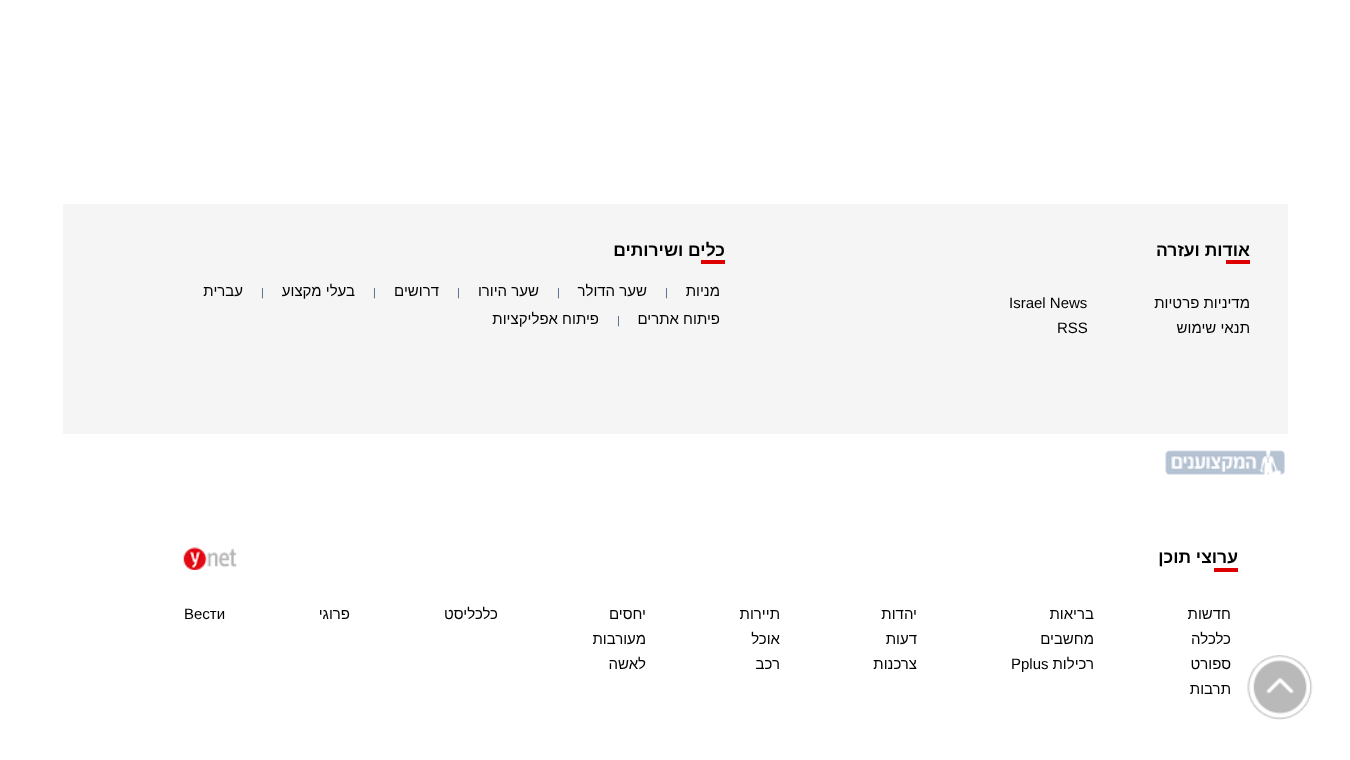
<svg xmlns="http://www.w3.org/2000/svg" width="1350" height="760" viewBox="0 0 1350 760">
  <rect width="100%" height="100%" fill="#ffffff"/>
  <image x="1247" y="655" width="66" height="65" href="img1.png"/>
  <rect x="63" y="204" width="1225" height="230" fill="#f5f5f5"/>
  <text x="1250" y="256" font-family="Liberation Sans" font-size="17.5" font-weight="bold" direction="rtl" fill="#000000">אודות ועזרה</text>
  <rect x="1226" y="260" width="24" height="4" fill="#de0000"/>
  <text x="1250" y="308" font-family="Liberation Sans" font-size="15" direction="rtl" fill="#000000">מדיניות פרטיות</text>
  <text x="1250" y="333" font-family="Liberation Sans" font-size="15" direction="rtl" fill="#000000">תנאי שימוש</text>
  <text x="1009" y="308" font-family="Liberation Sans" font-size="15" fill="#000000">Israel News</text>
  <text x="1057" y="333" font-family="Liberation Sans" font-size="15" fill="#000000">RSS</text>
  <text x="725" y="256" font-family="Liberation Sans" font-size="17.5" font-weight="bold" direction="rtl" fill="#000000">כלים ושירותים</text>
  <rect x="701" y="260" width="24" height="4" fill="#de0000"/>
  <text x="720" y="296" font-family="Liberation Sans" font-size="15" direction="rtl" fill="#000000">מניות</text>
  <text x="665" y="296" font-family="Liberation Sans" font-size="11" fill="#4a668b">|</text>
  <text x="647" y="296" font-family="Liberation Sans" font-size="15" direction="rtl" fill="#000000">שער הדולר</text>
  <text x="557" y="296" font-family="Liberation Sans" font-size="11" fill="#4a668b">|</text>
  <text x="539" y="296" font-family="Liberation Sans" font-size="15" direction="rtl" fill="#000000">שער היורו</text>
  <text x="457" y="296" font-family="Liberation Sans" font-size="11" fill="#4a668b">|</text>
  <text x="439" y="296" font-family="Liberation Sans" font-size="15" direction="rtl" fill="#000000">דרושים</text>
  <text x="373" y="296" font-family="Liberation Sans" font-size="11" fill="#4a668b">|</text>
  <text x="355" y="296" font-family="Liberation Sans" font-size="15" direction="rtl" fill="#000000">בעלי מקצוע</text>
  <text x="261" y="296" font-family="Liberation Sans" font-size="11" fill="#4a668b">|</text>
  <text x="243" y="296" font-family="Liberation Sans" font-size="15" direction="rtl" fill="#000000">עברית</text>
  <text x="720" y="324" font-family="Liberation Sans" font-size="15" direction="rtl" fill="#000000">פיתוח אתרים</text>
  <text x="617" y="324" font-family="Liberation Sans" font-size="11" fill="#4a668b">|</text>
  <text x="599" y="324" font-family="Liberation Sans" font-size="15" direction="rtl" fill="#000000">פיתוח אפליקציות</text>
  <image x="1165" y="450" width="120" height="25" href="img2.png"/>
  <text x="1238" y="563" font-family="Liberation Sans" font-size="17.5" font-weight="bold" direction="rtl" fill="#000000">ערוצי תוכן</text>
  <rect x="1214" y="568" width="24" height="4" fill="#de0000"/>
  <image x="183" y="547" width="54" height="23" href="img3.png"/>
  <text x="1231" y="619" font-family="Liberation Sans" font-size="15" direction="rtl" fill="#000000">חדשות</text>
  <text x="1231" y="644" font-family="Liberation Sans" font-size="15" direction="rtl" fill="#000000">כלכלה</text>
  <text x="1231" y="669" font-family="Liberation Sans" font-size="15" direction="rtl" fill="#000000">ספורט</text>
  <text x="1231" y="694" font-family="Liberation Sans" font-size="15" direction="rtl" fill="#000000">תרבות</text>
  <text x="1094" y="619" font-family="Liberation Sans" font-size="15" direction="rtl" fill="#000000">בריאות</text>
  <text x="1094" y="644" font-family="Liberation Sans" font-size="15" direction="rtl" fill="#000000">מחשבים</text>
  <text x="1094" y="669" font-family="Liberation Sans" font-size="15" direction="rtl" fill="#000000">רכילות</text>
  <text x="1011" y="669" font-family="Liberation Sans" font-size="15" fill="#000000">Pplus</text>
  <text x="917" y="619" font-family="Liberation Sans" font-size="15" direction="rtl" fill="#000000">יהדות</text>
  <text x="917" y="644" font-family="Liberation Sans" font-size="15" direction="rtl" fill="#000000">דעות</text>
  <text x="917" y="669" font-family="Liberation Sans" font-size="15" direction="rtl" fill="#000000">צרכנות</text>
  <text x="780" y="619" font-family="Liberation Sans" font-size="15" direction="rtl" fill="#000000">תיירות</text>
  <text x="780" y="644" font-family="Liberation Sans" font-size="15" direction="rtl" fill="#000000">אוכל</text>
  <text x="780" y="669" font-family="Liberation Sans" font-size="15" direction="rtl" fill="#000000">רכב</text>
  <text x="646" y="619" font-family="Liberation Sans" font-size="15" direction="rtl" fill="#000000">יחסים</text>
  <text x="646" y="644" font-family="Liberation Sans" font-size="15" direction="rtl" fill="#000000">מעורבות</text>
  <text x="646" y="669" font-family="Liberation Sans" font-size="15" direction="rtl" fill="#000000">לאשה</text>
  <text x="498" y="619" font-family="Liberation Sans" font-size="15" direction="rtl" fill="#000000">כלכליסט</text>
  <text x="350" y="619" font-family="Liberation Sans" font-size="15" direction="rtl" fill="#000000">פרוגי</text>
  <text x="184" y="619" font-family="Liberation Sans" font-size="15" fill="#000000">Вести</text>
</svg>
